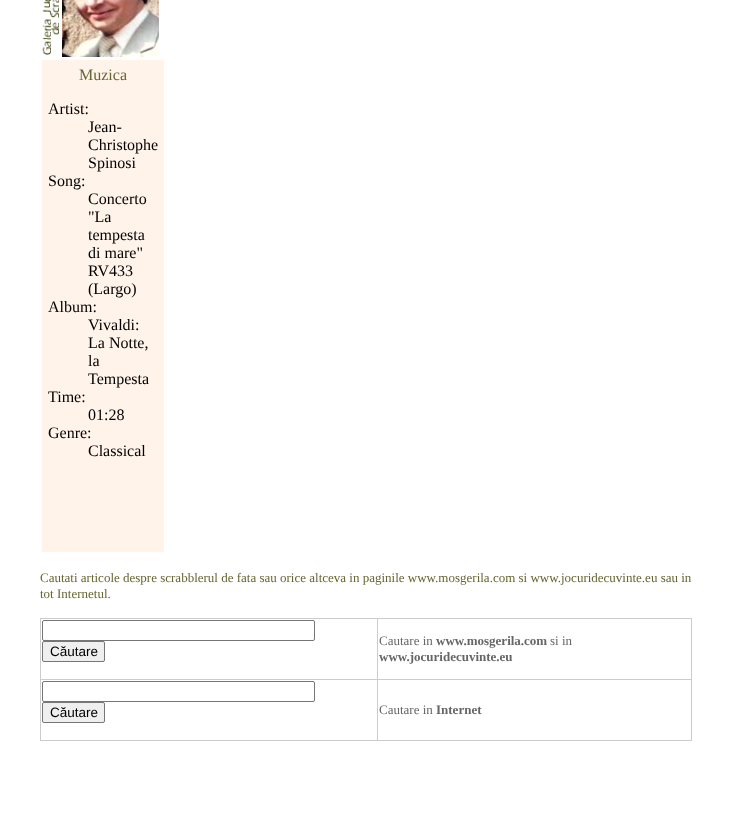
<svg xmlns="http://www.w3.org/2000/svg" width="732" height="823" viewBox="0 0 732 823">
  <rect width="100%" height="100%" fill="#ffffff"/>
  <image x="42" y="0" width="17" height="55" href="img1.png"/>
  <image x="62" y="0" width="97" height="57" href="img2.png"/>
  <rect x="42" y="60" width="122" height="492" fill="#fff3ea"/>
  <text x="79" y="80" font-family="Liberation Serif" font-size="16" fill="#666633">Muzica</text>
  <text x="48" y="114" font-family="Liberation Serif" font-size="16" fill="#000000">Artist:</text>
  <text x="88" y="132" font-family="Liberation Serif" font-size="16" fill="#000000">Jean-</text>
  <text x="88" y="150" font-family="Liberation Serif" font-size="16" fill="#000000">Christophe</text>
  <text x="88" y="168" font-family="Liberation Serif" font-size="16" fill="#000000">Spinosi</text>
  <text x="48" y="186" font-family="Liberation Serif" font-size="16" fill="#000000">Song:</text>
  <text x="88" y="204" font-family="Liberation Serif" font-size="16" fill="#000000">Concerto</text>
  <text x="88" y="222" font-family="Liberation Serif" font-size="16" fill="#000000">"La</text>
  <text x="88" y="240" font-family="Liberation Serif" font-size="16" fill="#000000">tempesta</text>
  <text x="88" y="258" font-family="Liberation Serif" font-size="16" fill="#000000">di mare"</text>
  <text x="88" y="276" font-family="Liberation Serif" font-size="16" fill="#000000">RV433</text>
  <text x="88" y="294" font-family="Liberation Serif" font-size="16" fill="#000000">(Largo)</text>
  <text x="48" y="312" font-family="Liberation Serif" font-size="16" fill="#000000">Album:</text>
  <text x="88" y="330" font-family="Liberation Serif" font-size="16" fill="#000000">Vivaldi:</text>
  <text x="88" y="348" font-family="Liberation Serif" font-size="16" fill="#000000">La Notte,</text>
  <text x="88" y="366" font-family="Liberation Serif" font-size="16" fill="#000000">la</text>
  <text x="88" y="384" font-family="Liberation Serif" font-size="16" fill="#000000">Tempesta</text>
  <text x="48" y="402" font-family="Liberation Serif" font-size="16" fill="#000000">Time:</text>
  <text x="88" y="420" font-family="Liberation Serif" font-size="16" fill="#000000">01:28</text>
  <text x="48" y="438" font-family="Liberation Serif" font-size="16" fill="#000000">Genre:</text>
  <text x="88" y="456" font-family="Liberation Serif" font-size="16" fill="#000000">Classical</text>
  <text x="40" y="582" font-family="Liberation Serif" font-size="13" fill="#666633">Cautati articole despre scrabblerul de fata sau orice altceva in paginile www.mosgerila.com si www.jocuridecuvinte.eu sau in</text>
  <text x="40" y="598" font-family="Liberation Serif" font-size="13" fill="#666633">tot Internetul.</text>
  <rect x="40" y="618" width="652" height="1" fill="#cccccc"/>
  <rect x="691" y="618" width="1" height="123" fill="#cccccc"/>
  <rect x="40" y="740" width="652" height="1" fill="#cccccc"/>
  <rect x="40" y="618" width="1" height="123" fill="#cccccc"/>
  <rect x="42.5" y="620.5" width="272" height="20" rx="1.5" fill="none" stroke="#767676"/>
  <rect x="42.5" y="641.5" width="62" height="20" rx="1.5" fill="#efefef" stroke="#767676"/>
  <text x="50" y="656" font-family="Liberation Sans" font-size="13.5" fill="#000000">Căutare</text>
  <rect x="377" y="679" width="315" height="1" fill="#cccccc"/>
  <rect x="377" y="679" width="1" height="62" fill="#cccccc"/>
  <rect x="40" y="679" width="338" height="1" fill="#cccccc"/>
  <rect x="377" y="618" width="1" height="62" fill="#cccccc"/>
  <text x="379" y="645" font-family="Liberation Serif" font-size="13" fill="#666666">Cautare in</text>
  <text x="436" y="645" font-family="Liberation Serif" font-size="13" font-weight="bold" fill="#666666">www.mosgerila.com</text>
  <text x="550" y="645" font-family="Liberation Serif" font-size="13" fill="#666666">si in</text>
  <text x="379" y="661" font-family="Liberation Serif" font-size="13" font-weight="bold" fill="#666666">www.jocuridecuvinte.eu</text>
  <rect x="42.5" y="681.5" width="272" height="20" rx="1.5" fill="none" stroke="#767676"/>
  <rect x="42.5" y="702.5" width="62" height="20" rx="1.5" fill="#efefef" stroke="#767676"/>
  <text x="50" y="717" font-family="Liberation Sans" font-size="13.5" fill="#000000">Căutare</text>
  <text x="379" y="714" font-family="Liberation Serif" font-size="13" fill="#666666">Cautare in</text>
  <text x="436" y="714" font-family="Liberation Serif" font-size="13" font-weight="bold" fill="#666666">Internet</text>
</svg>
